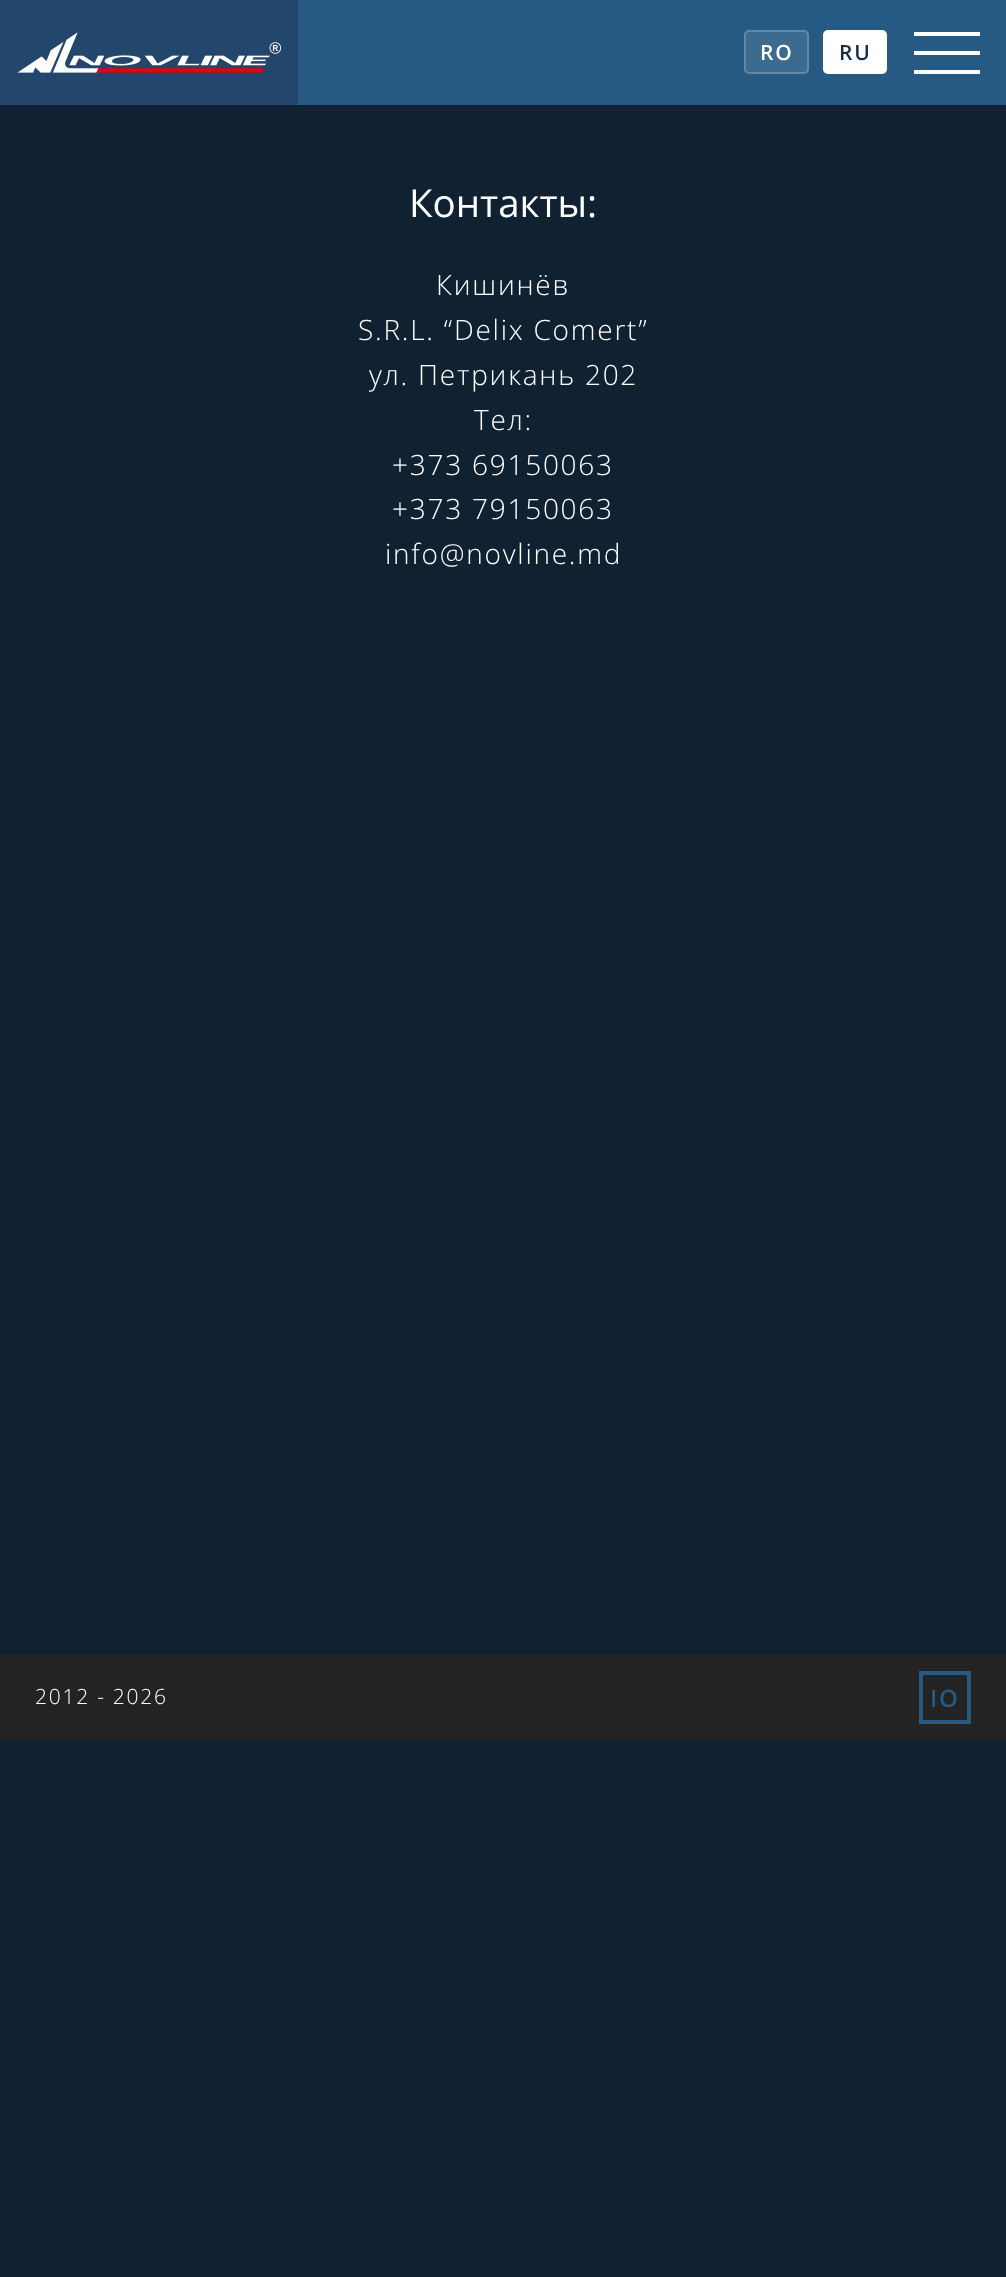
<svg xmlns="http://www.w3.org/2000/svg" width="1006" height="2277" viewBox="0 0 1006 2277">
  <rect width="100%" height="100%" fill="#102132"/>
  <rect x="298" y="0" width="708" height="105" fill="#265a82"/>
  <rect x="0" y="0" width="298" height="105" fill="#23466c"/>
  <image x="17" y="32" width="265" height="41" href="img1.png"/>
  <rect x="744" y="30" width="65" height="44" rx="5" fill="#3c6b8f"/>
  <rect x="745" y="31" width="63" height="42" rx="4" fill="none" stroke="#ffffff" stroke-opacity="0.2" stroke-width="2"/>
  <text x="760" y="60" font-family="Open Sans" font-size="21" font-weight="600" letter-spacing="1.75" fill="#ffffff">RO</text>
  <rect x="823" y="30" width="64" height="44" rx="5" fill="#ffffff"/>
  <rect x="824" y="31" width="62" height="42" rx="4" fill="none" stroke="#ffffff" stroke-opacity="0.2" stroke-width="2"/>
  <text x="839" y="60" font-family="Open Sans" font-size="21" font-weight="600" letter-spacing="1.75" fill="#172d45">RU</text>
  <rect x="914" y="32" width="66" height="4" fill="#ffffff"/>
  <rect x="914" y="51" width="66" height="4" fill="#ffffff"/>
  <rect x="914" y="70" width="66" height="4" fill="#ffffff"/>
  <text x="409" y="217" font-family="Open Sans" font-size="38.5" fill="#ffffff">Контакты:</text>
  <text x="436" y="295" font-family="Open Sans" font-size="28" font-weight="300" letter-spacing="1.75" fill="#ffffff">Кишинёв</text>
  <text x="358" y="340" font-family="Open Sans" font-size="28" font-weight="300" letter-spacing="1.75" fill="#ffffff">S.R.L. “Delix Comert”</text>
  <text x="369" y="385" font-family="Open Sans" font-size="28" font-weight="300" letter-spacing="1.75" fill="#ffffff">ул. Петрикань 202</text>
  <text x="474" y="430" font-family="Open Sans" font-size="28" font-weight="300" letter-spacing="1.75" fill="#ffffff">Тел:</text>
  <text x="392" y="475" font-family="Open Sans" font-size="28" font-weight="300" letter-spacing="1.75" fill="#ffffff">+373 69150063</text>
  <text x="392" y="519" font-family="Open Sans" font-size="28" font-weight="300" letter-spacing="1.75" fill="#ffffff">+373 79150063</text>
  <text x="385" y="564" font-family="Open Sans" font-size="28" font-weight="300" letter-spacing="1.75" fill="#ffffff">info@novline.md</text>
  <rect x="0" y="1654" width="1006" height="87" fill="#232323"/>
  <text x="35" y="1704" font-family="Open Sans" font-size="21" font-weight="300" letter-spacing="1.75" fill="#ffffff">2012 - 2026</text>
  <rect x="921" y="1673" width="48" height="49" fill="none" stroke="#265a82" stroke-width="4"/>
  <text x="930" y="1707" font-family="Open Sans" font-size="24" font-weight="600" letter-spacing="1.75" fill="#265a82">IO</text>
</svg>
